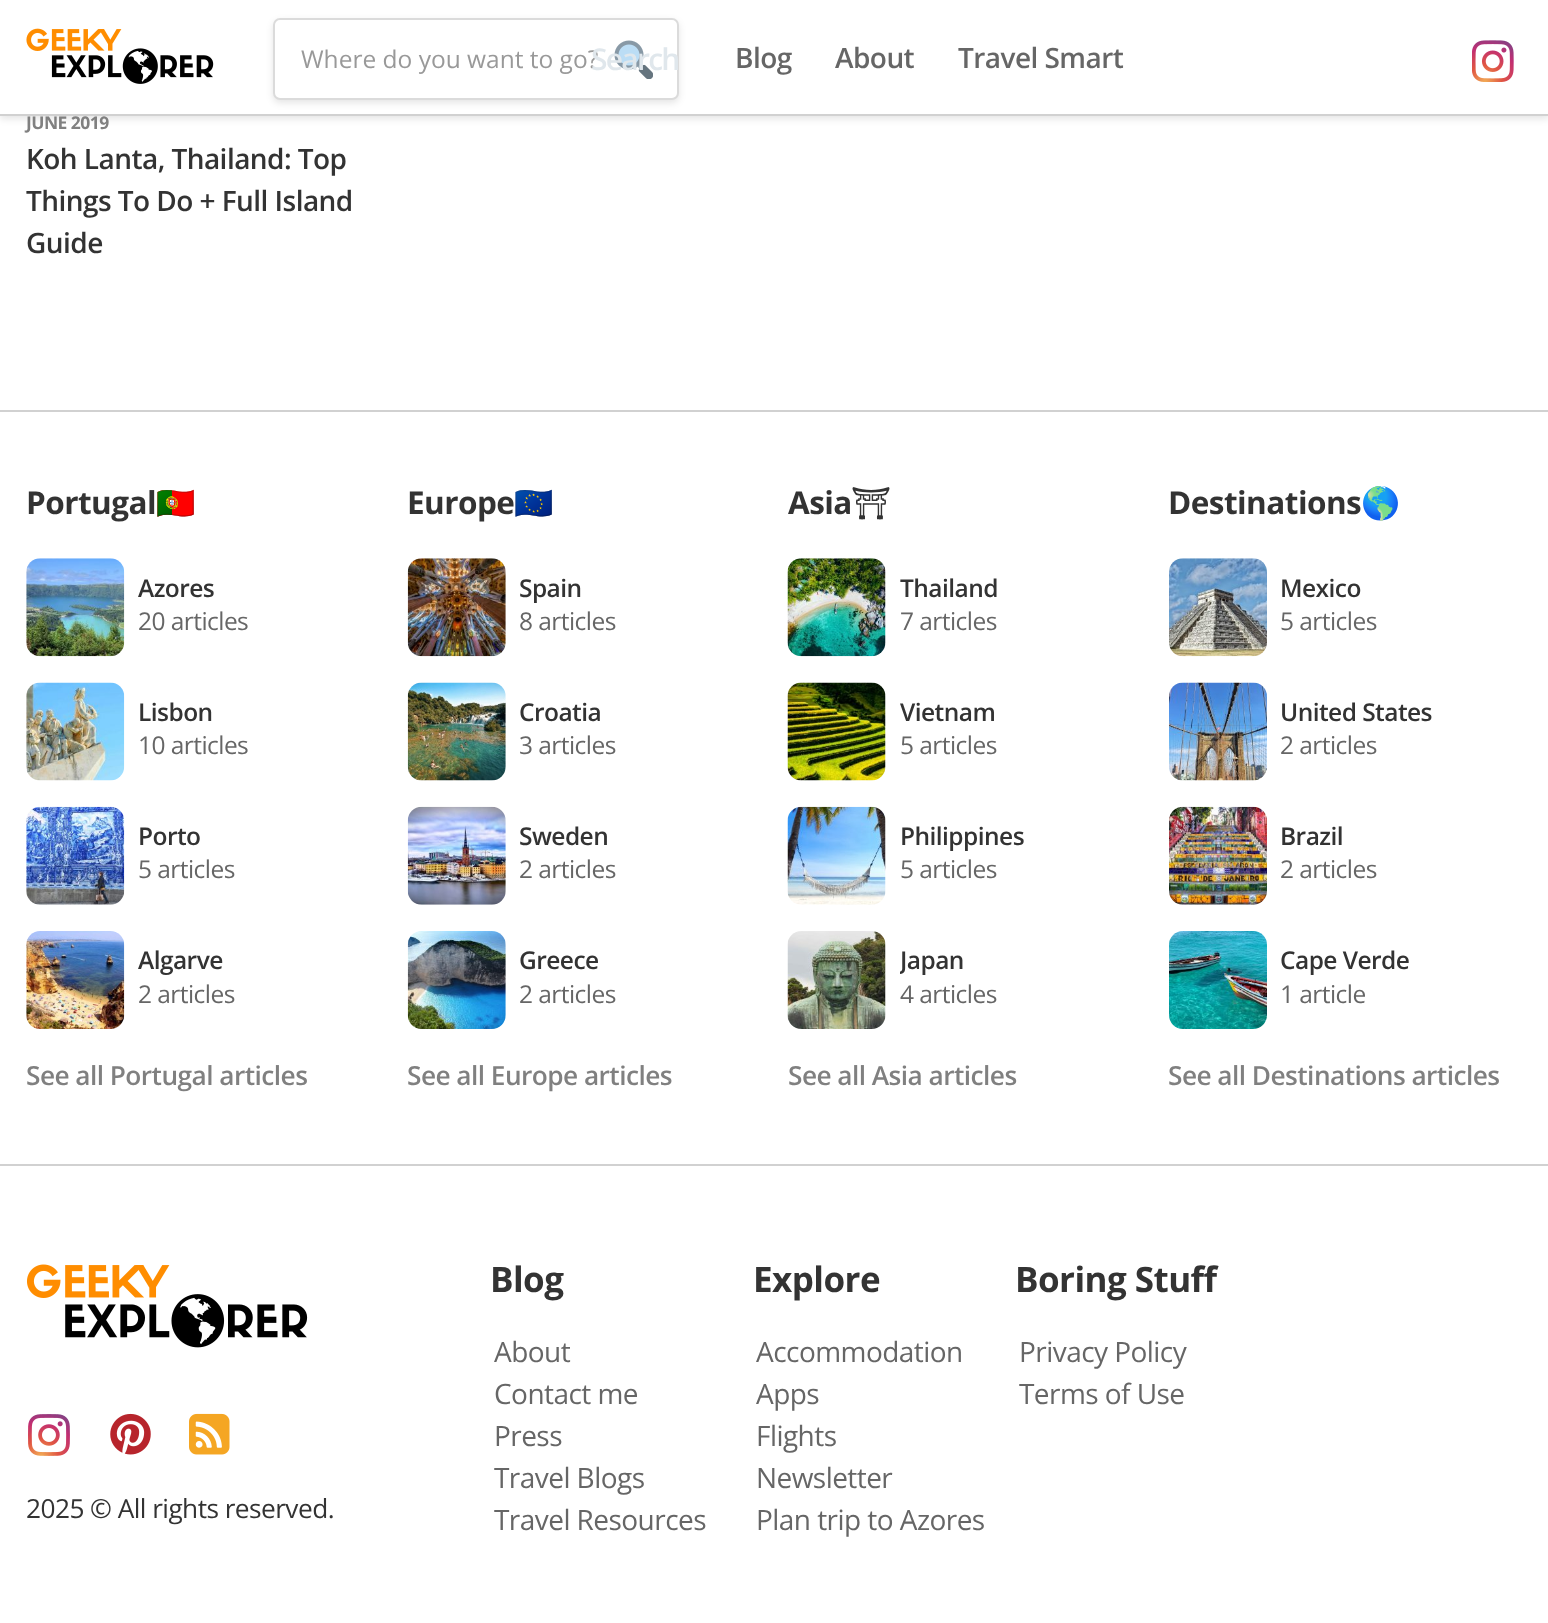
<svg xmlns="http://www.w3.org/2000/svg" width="1548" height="1623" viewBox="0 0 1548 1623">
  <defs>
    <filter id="blur1" x="-50%" y="-200%" width="200%" height="500%"><feGaussianBlur stdDeviation="3.5"/></filter>
    <clipPath id="clip1"><rect x="900" y="569" width="98" height="37"/></clipPath>
    <clipPath id="clip2"><rect x="900" y="942" width="96" height="36"/></clipPath>
  </defs>
  <rect width="100%" height="100%" fill="#ffffff"/>
  <rect x="0" y="4" width="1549" height="115" fill="#000000" fill-opacity="0.1" filter="url(#blur1)"/>
  <rect x="0" y="0" width="1548" height="114" fill="#ffffff"/>
  <rect x="0" y="114" width="1548" height="2" fill="#d1d1d1"/>
  <image x="26" y="28" width="188" height="56" href="img1.png"/>
  <rect x="273" y="21" width="406" height="82" rx="7" fill="#000000" fill-opacity="0.1" filter="url(#blur1)"/>
  <rect x="274" y="19" width="404" height="80" rx="6" fill="#ffffff" stroke="#dbdbdb" stroke-width="2"/>
  <text x="301" y="68" font-family="Open Sans" font-size="24.5" fill="#999999">Where do you want to go?</text>
  <image x="614" y="40" width="39" height="39" href="img2.png"/>
  <text x="591" y="70" font-family="Open Sans" font-size="30" font-weight="600" letter-spacing="-1.75" fill="#e0e7ec">Search</text>
  <text x="735" y="68" font-family="Open Sans" font-size="28" font-weight="600" letter-spacing="-0.55" fill="#666666">Blog</text>
  <text x="835" y="68" font-family="Open Sans" font-size="28" font-weight="600" letter-spacing="-0.55" fill="#666666">About</text>
  <text x="958" y="68" font-family="Open Sans" font-size="28" font-weight="600" letter-spacing="-0.55" fill="#666666">Travel Smart</text>
  <image x="1472" y="40" width="42" height="42" href="img3.png"/>
  <text x="26" y="129" font-family="Open Sans" font-size="17.5" font-weight="bold" letter-spacing="-0.55" fill="#808080">JUNE 2019</text>
  <text x="26" y="169" font-family="Open Sans" font-size="28" font-weight="600" letter-spacing="-0.55" fill="#333333">Koh Lanta, Thailand: Top</text>
  <text x="26" y="211" font-family="Open Sans" font-size="28" font-weight="600" letter-spacing="-0.55" fill="#333333">Things To Do + Full Island</text>
  <text x="26" y="253" font-family="Open Sans" font-size="28" font-weight="600" letter-spacing="-0.55" fill="#333333">Guide</text>
  <rect x="0" y="410" width="1548" height="2" fill="#d1d1d1"/>
  <text x="26" y="514" font-family="Open Sans" font-size="31.5" font-weight="bold" letter-spacing="-0.55" fill="#333333">Portugal</text>
  <text x="156" y="514" font-family="Noto Color Emoji" font-size="31.5" font-weight="bold" letter-spacing="-0.55" fill="#333333">🇵🇹</text>
  <image x="26" y="558" width="99" height="99" href="img4.png"/>
  <text x="138" y="597" font-family="Open Sans" font-size="24.5" font-weight="600" letter-spacing="-0.55" fill="#333333">Azores</text>
  <text x="138" y="630" font-family="Open Sans" font-size="24.5" letter-spacing="-0.55" fill="#666666">20 articles</text>
  <image x="26" y="682" width="99" height="99" href="img5.png"/>
  <text x="138" y="721" font-family="Open Sans" font-size="24.5" font-weight="600" letter-spacing="-0.55" fill="#333333">Lisbon</text>
  <text x="138" y="754" font-family="Open Sans" font-size="24.5" letter-spacing="-0.55" fill="#666666">10 articles</text>
  <image x="26" y="806" width="99" height="99" href="img6.png"/>
  <text x="138" y="845" font-family="Open Sans" font-size="24.5" font-weight="600" letter-spacing="-0.55" fill="#333333">Porto</text>
  <text x="138" y="878" font-family="Open Sans" font-size="24.5" letter-spacing="-0.55" fill="#666666">5 articles</text>
  <image x="26" y="931" width="99" height="98" href="img7.png"/>
  <text x="138" y="969" font-family="Open Sans" font-size="24.5" font-weight="600" letter-spacing="-0.55" fill="#333333">Algarve</text>
  <text x="138" y="1003" font-family="Open Sans" font-size="24.5" letter-spacing="-0.55" fill="#666666">2 articles</text>
  <text x="26" y="1085" font-family="Open Sans" font-size="26.25" font-weight="600" letter-spacing="-0.55" fill="#808080">See all Portugal articles</text>
  <text x="407" y="514" font-family="Open Sans" font-size="31.5" font-weight="bold" letter-spacing="-0.55" fill="#333333">Europe</text>
  <text x="514" y="514" font-family="Noto Color Emoji" font-size="31.5" font-weight="bold" letter-spacing="-0.55" fill="#333333">🇪🇺</text>
  <image x="407" y="558" width="99" height="99" href="img8.png"/>
  <text x="519" y="597" font-family="Open Sans" font-size="24.5" font-weight="600" letter-spacing="-0.55" fill="#333333">Spain</text>
  <text x="519" y="630" font-family="Open Sans" font-size="24.5" letter-spacing="-0.55" fill="#666666">8 articles</text>
  <image x="407" y="682" width="99" height="99" href="img9.png"/>
  <text x="519" y="721" font-family="Open Sans" font-size="24.5" font-weight="600" letter-spacing="-0.55" fill="#333333">Croatia</text>
  <text x="519" y="754" font-family="Open Sans" font-size="24.5" letter-spacing="-0.55" fill="#666666">3 articles</text>
  <image x="407" y="806" width="99" height="99" href="img10.png"/>
  <text x="519" y="845" font-family="Open Sans" font-size="24.5" font-weight="600" letter-spacing="-0.55" fill="#333333">Sweden</text>
  <text x="519" y="878" font-family="Open Sans" font-size="24.5" letter-spacing="-0.55" fill="#666666">2 articles</text>
  <image x="407" y="931" width="99" height="98" href="img11.png"/>
  <text x="519" y="969" font-family="Open Sans" font-size="24.5" font-weight="600" letter-spacing="-0.55" fill="#333333">Greece</text>
  <text x="519" y="1003" font-family="Open Sans" font-size="24.5" letter-spacing="-0.55" fill="#666666">2 articles</text>
  <text x="407" y="1085" font-family="Open Sans" font-size="26.25" font-weight="600" letter-spacing="-0.55" fill="#808080">See all Europe articles</text>
  <text x="788" y="514" font-family="Open Sans" font-size="31.5" font-weight="bold" letter-spacing="-0.55" fill="#333333">Asia</text>
  <text x="851" y="514" font-family="Noto Emoji" font-size="31.5" font-weight="bold" letter-spacing="-0.55" fill="#333333">⛩</text>
  <image x="787" y="558" width="99" height="99" href="img12.png"/>
  <g clip-path="url(#clip1)">
    <text x="900" y="597" font-family="Open Sans" font-size="24.5" font-weight="600" letter-spacing="-0.55" fill="#333333">Thailand</text>
  </g>
  <text x="900" y="630" font-family="Open Sans" font-size="24.5" letter-spacing="-0.55" fill="#666666">7 articles</text>
  <image x="787" y="682" width="99" height="99" href="img13.png"/>
  <text x="900" y="721" font-family="Open Sans" font-size="24.5" font-weight="600" letter-spacing="-0.55" fill="#333333">Vietnam</text>
  <text x="900" y="754" font-family="Open Sans" font-size="24.5" letter-spacing="-0.55" fill="#666666">5 articles</text>
  <image x="787" y="806" width="99" height="99" href="img14.png"/>
  <text x="900" y="845" font-family="Open Sans" font-size="24.5" font-weight="600" letter-spacing="-0.55" fill="#333333">Philippines</text>
  <text x="900" y="878" font-family="Open Sans" font-size="24.5" letter-spacing="-0.55" fill="#666666">5 articles</text>
  <image x="787" y="931" width="99" height="98" href="img15.png"/>
  <g clip-path="url(#clip2)">
    <text x="900" y="969" font-family="Open Sans" font-size="24.5" font-weight="600" letter-spacing="-0.55" fill="#333333">Japan</text>
  </g>
  <text x="900" y="1003" font-family="Open Sans" font-size="24.5" letter-spacing="-0.55" fill="#666666">4 articles</text>
  <text x="788" y="1085" font-family="Open Sans" font-size="26.25" font-weight="600" letter-spacing="-0.55" fill="#808080">See all Asia articles</text>
  <text x="1168" y="514" font-family="Open Sans" font-size="31.5" font-weight="bold" letter-spacing="-0.55" fill="#333333">Destinations</text>
  <text x="1361" y="514" font-family="Noto Color Emoji" font-size="31.5" font-weight="bold" letter-spacing="-0.55" fill="#333333">🌎</text>
  <image x="1169" y="558" width="98" height="99" href="img16.png"/>
  <text x="1280" y="597" font-family="Open Sans" font-size="24.5" font-weight="600" letter-spacing="-0.55" fill="#333333">Mexico</text>
  <text x="1280" y="630" font-family="Open Sans" font-size="24.5" letter-spacing="-0.55" fill="#666666">5 articles</text>
  <image x="1169" y="682" width="98" height="99" href="img17.png"/>
  <text x="1280" y="721" font-family="Open Sans" font-size="24.5" font-weight="600" letter-spacing="-0.55" fill="#333333">United States</text>
  <text x="1280" y="754" font-family="Open Sans" font-size="24.5" letter-spacing="-0.55" fill="#666666">2 articles</text>
  <image x="1169" y="806" width="98" height="99" href="img18.png"/>
  <text x="1280" y="845" font-family="Open Sans" font-size="24.5" font-weight="600" letter-spacing="-0.55" fill="#333333">Brazil</text>
  <text x="1280" y="878" font-family="Open Sans" font-size="24.5" letter-spacing="-0.55" fill="#666666">2 articles</text>
  <image x="1169" y="931" width="98" height="98" href="img19.png"/>
  <text x="1280" y="969" font-family="Open Sans" font-size="24.5" font-weight="600" letter-spacing="-0.55" fill="#333333">Cape Verde</text>
  <text x="1280" y="1003" font-family="Open Sans" font-size="24.5" letter-spacing="-0.55" fill="#666666">1 article</text>
  <text x="1168" y="1085" font-family="Open Sans" font-size="26.25" font-weight="600" letter-spacing="-0.55" fill="#808080">See all Destinations articles</text>
  <rect x="0" y="1164" width="1548" height="2" fill="#d1d1d1"/>
  <image x="27" y="1264" width="281" height="84" href="img20.png"/>
  <image x="28" y="1414" width="42" height="42" href="img21.png"/>
  <image x="110" y="1413" width="41" height="42" href="img22.png"/>
  <image x="189" y="1413" width="41" height="42" href="img23.png"/>
  <text x="26" y="1518" font-family="Open Sans" font-size="26.25" letter-spacing="-0.55" fill="#333333">2025 © All rights reserved.</text>
  <text x="490" y="1292" font-family="Open Sans" font-size="35" font-weight="bold" letter-spacing="-0.55" fill="#333333">Blog</text>
  <text x="494" y="1362" font-family="Open Sans" font-size="28" letter-spacing="-0.55" fill="#666666">About</text>
  <text x="494" y="1404" font-family="Open Sans" font-size="28" letter-spacing="-0.55" fill="#666666">Contact me</text>
  <text x="494" y="1446" font-family="Open Sans" font-size="28" letter-spacing="-0.55" fill="#666666">Press</text>
  <text x="494" y="1488" font-family="Open Sans" font-size="28" letter-spacing="-0.55" fill="#666666">Travel Blogs</text>
  <text x="494" y="1530" font-family="Open Sans" font-size="28" letter-spacing="-0.55" fill="#666666">Travel Resources</text>
  <text x="753" y="1292" font-family="Open Sans" font-size="35" font-weight="bold" letter-spacing="-0.55" fill="#333333">Explore</text>
  <text x="756" y="1362" font-family="Open Sans" font-size="28" letter-spacing="-0.55" fill="#666666">Accommodation</text>
  <text x="756" y="1404" font-family="Open Sans" font-size="28" letter-spacing="-0.55" fill="#666666">Apps</text>
  <text x="756" y="1446" font-family="Open Sans" font-size="28" letter-spacing="-0.55" fill="#666666">Flights</text>
  <text x="756" y="1488" font-family="Open Sans" font-size="28" letter-spacing="-0.55" fill="#666666">Newsletter</text>
  <text x="756" y="1530" font-family="Open Sans" font-size="28" letter-spacing="-0.55" fill="#666666">Plan trip to Azores</text>
  <text x="1015" y="1292" font-family="Open Sans" font-size="35" font-weight="bold" letter-spacing="-0.55" fill="#333333">Boring Stuff</text>
  <text x="1019" y="1362" font-family="Open Sans" font-size="28" letter-spacing="-0.55" fill="#666666">Privacy Policy</text>
  <text x="1019" y="1404" font-family="Open Sans" font-size="28" letter-spacing="-0.55" fill="#666666">Terms of Use</text>
</svg>
